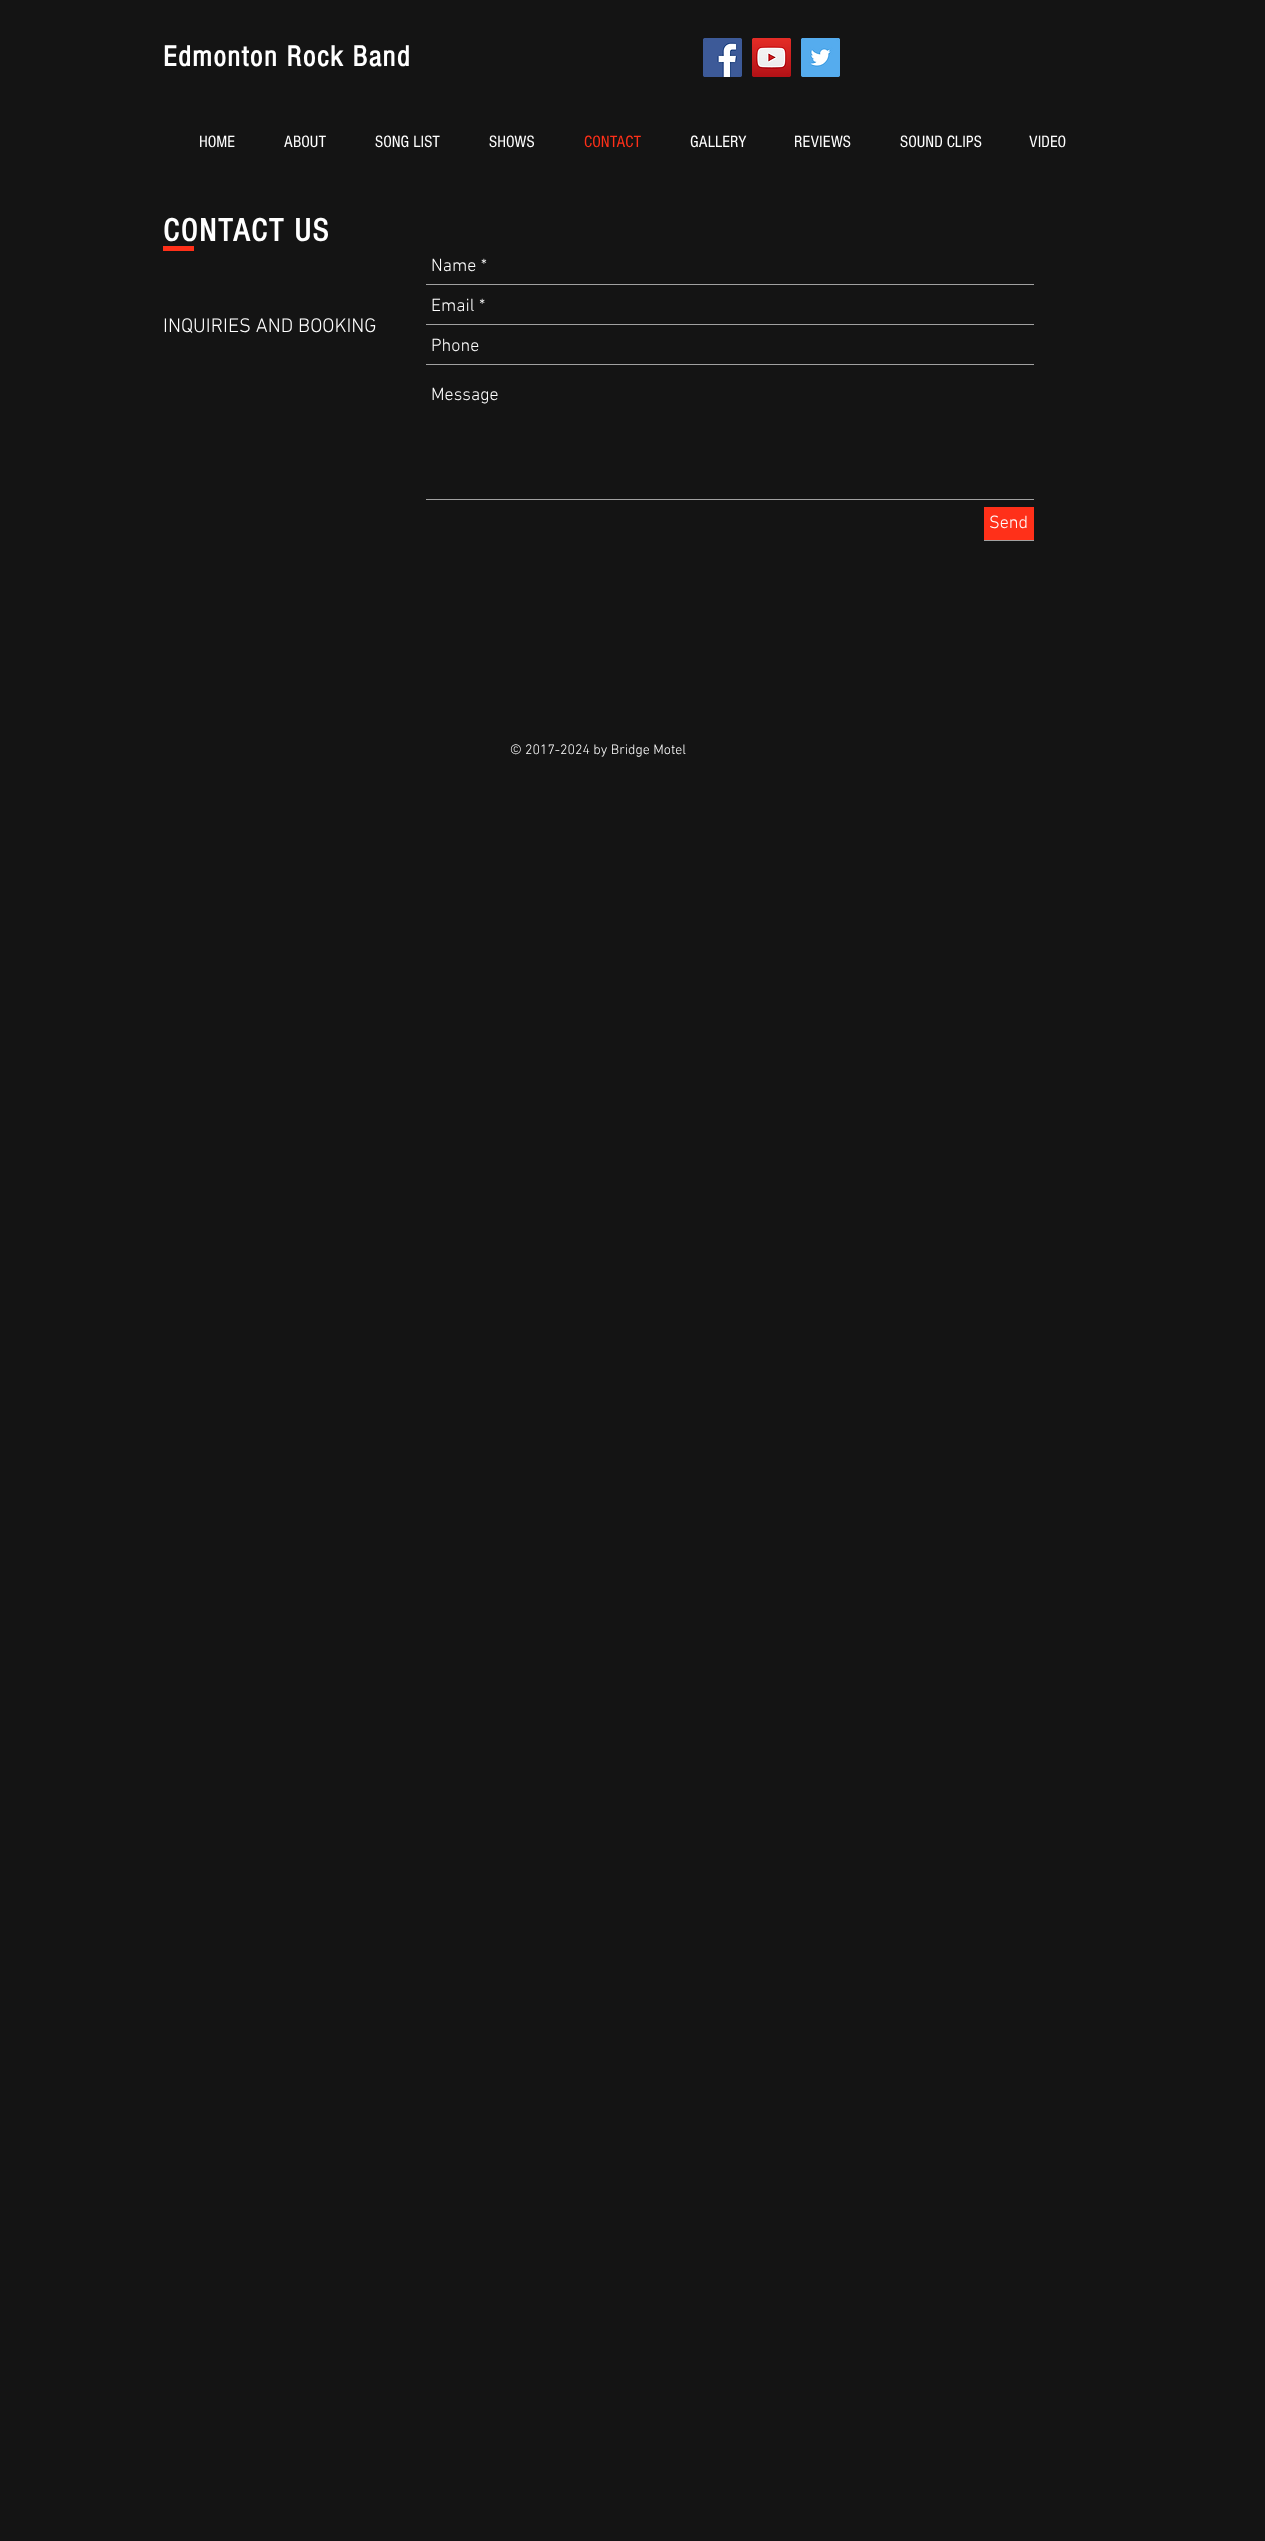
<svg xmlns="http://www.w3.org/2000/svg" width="1265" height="2541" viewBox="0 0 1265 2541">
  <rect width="100%" height="100%" fill="#141414"/>
  <text x="163" y="66" font-family="'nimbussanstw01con'" font-size="30" font-weight="bold" letter-spacing="1.5" fill="#ffffff">Edmonton Rock Band</text>
  <image x="703" y="38" width="39" height="39" href="img1.png"/>
  <image x="752" y="38" width="39" height="39" href="img2.png"/>
  <image x="801" y="38" width="39" height="39" href="img3.png"/>
  <text x="199" y="147" font-family="'nimbussanstw01con'" font-size="17" fill="#ffffff">HOME</text>
  <text x="284" y="147" font-family="'nimbussanstw01con'" font-size="17" fill="#ffffff">ABOUT</text>
  <text x="375" y="147" font-family="'nimbussanstw01con'" font-size="17" fill="#ffffff">SONG LIST</text>
  <text x="489" y="147" font-family="'nimbussanstw01con'" font-size="17" fill="#ffffff">SHOWS</text>
  <text x="584" y="147" font-family="'nimbussanstw01con'" font-size="17" fill="#ff3019">CONTACT</text>
  <text x="690" y="147" font-family="'nimbussanstw01con'" font-size="17" fill="#ffffff">GALLERY</text>
  <text x="794" y="147" font-family="'nimbussanstw01con'" font-size="17" fill="#ffffff">REVIEWS</text>
  <text x="900" y="147" font-family="'nimbussanstw01con'" font-size="17" fill="#ffffff">SOUND CLIPS</text>
  <text x="1029" y="147" font-family="'nimbussanstw01con'" font-size="17" fill="#ffffff">VIDEO</text>
  <text x="163" y="241" font-family="'nimbussanstw01con'" font-size="33" font-weight="bold" letter-spacing="1.6" fill="#ffffff">CONTACT US</text>
  <rect x="163" y="246" width="31" height="5" fill="#ff3019"/>
  <text x="163" y="332" font-family="'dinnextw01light'" font-size="20" font-weight="300" fill="#ffffff">INQUIRIES AND BOOKING</text>
  <rect x="426" y="284" width="608" height="1" fill="#a1a1a1"/>
  <text x="431" y="271" font-family="'dinnextw01light'" font-size="18" font-weight="300" fill="#ffffff">Name *</text>
  <rect x="426" y="324" width="608" height="1" fill="#a1a1a1"/>
  <text x="431" y="311" font-family="'dinnextw01light'" font-size="18" font-weight="300" fill="#ffffff">Email *</text>
  <rect x="426" y="364" width="608" height="1" fill="#a1a1a1"/>
  <text x="431" y="351" font-family="'dinnextw01light'" font-size="18" font-weight="300" fill="#ffffff">Phone</text>
  <rect x="426" y="499" width="608" height="1" fill="#a1a1a1"/>
  <text x="431" y="400" font-family="'dinnextw01light'" font-size="18" font-weight="300" fill="#ffffff">Message</text>
  <rect x="984" y="540" width="50" height="1" fill="#a1a1a1"/>
  <rect x="984" y="507" width="50" height="33" fill="#ff3019"/>
  <text x="989" y="528" font-family="'dinnextw01light'" font-size="18" font-weight="300" fill="#ffffff">Send</text>
  <text x="510" y="754" font-family="'dinnextw01light'" font-size="14" font-weight="300" fill="#ffffff">© 2017-2024 by Bridge Motel</text>
</svg>
